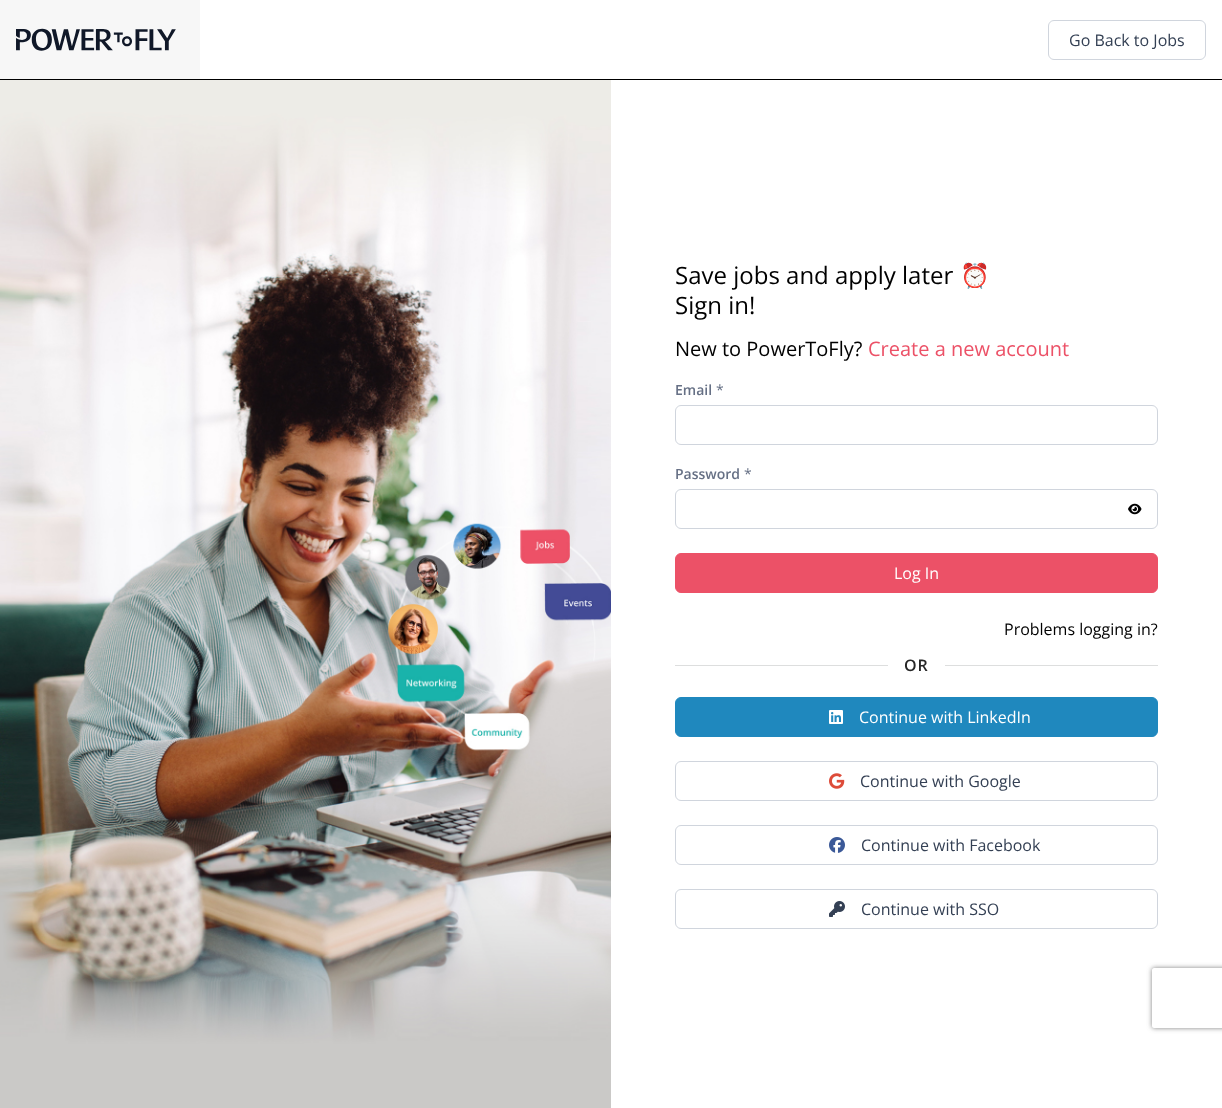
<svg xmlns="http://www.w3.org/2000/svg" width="1222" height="1108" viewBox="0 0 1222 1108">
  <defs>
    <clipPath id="clip1"><path d="M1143 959H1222V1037H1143ZM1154 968H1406C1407 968 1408 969 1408 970V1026C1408 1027 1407 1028 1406 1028H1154C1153 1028 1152 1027 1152 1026V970C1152 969 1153 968 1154 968Z" clip-rule="evenodd"/></clipPath>
    <filter id="blur1" x="-50%" y="-200%" width="200%" height="500%"><feGaussianBlur stdDeviation="2.5"/></filter>
  </defs>
  <rect width="100%" height="100%" fill="#ffffff"/>
  <rect x="0" y="0" width="200" height="79" fill="#f7f7f7"/>
  <rect x="0" y="79" width="1222" height="1" fill="#000000"/>
  <image x="16" y="28" width="160" height="23" href="img1.png"/>
  <rect x="1048.5" y="20.5" width="157" height="39" rx="5.5" fill="none" stroke="#d0d5dd"/>
  <text x="1069" y="46" font-family="Open Sans" font-size="16" fill="#344054">Go Back to Jobs</text>
  <image x="0" y="80" width="611" height="1028" href="img2.png"/>
  <text x="675" y="284" font-family="Open Sans" font-size="24" fill="#000000">Save jobs and apply later</text>
  <text x="960" y="284" font-family="Noto Color Emoji" font-size="24" fill="#000000">⏰</text>
  <text x="675" y="314" font-family="Open Sans" font-size="24" fill="#000000">Sign in!</text>
  <text x="675" y="356" font-family="Open Sans" font-size="20" fill="#000000">New to PowerToFly?</text>
  <text x="868" y="356" font-family="Open Sans" font-size="20" fill="#ec5167">Create a new account</text>
  <text x="675" y="395" font-family="Open Sans" font-size="14" font-weight="600" fill="#667085">Email</text>
  <text x="716" y="395" font-family="Open Sans" font-size="14" fill="#667085">*</text>
  <rect x="675.5" y="405.5" width="482" height="39" rx="5.5" fill="none" stroke="#d0d5dd"/>
  <text x="675" y="479" font-family="Open Sans" font-size="14" font-weight="600" fill="#667085">Password</text>
  <text x="744" y="479" font-family="Open Sans" font-size="14" fill="#667085">*</text>
  <rect x="675.5" y="489.5" width="482" height="39" rx="5.5" fill="none" stroke="#d0d5dd"/>
  <image x="1128" y="503" width="14" height="12" href="img3.png"/>
  <rect x="675.5" y="553.5" width="482" height="39" rx="5.5" fill="#ec5167" stroke="#ec5167"/>
  <text x="894" y="579" font-family="Open Sans" font-size="16" fill="#ffffff">Log In</text>
  <text x="1004" y="635" font-family="Open Sans" font-size="16" fill="#000000">Problems logging in?</text>
  <rect x="675" y="665" width="213" height="1" fill="#dddede"/>
  <text x="904" y="671" font-family="Open Sans" font-size="16" font-weight="600" letter-spacing="1" fill="#262626">OR</text>
  <rect x="945" y="665" width="213" height="1" fill="#dddede"/>
  <rect x="675.5" y="697.5" width="482" height="39" rx="5.5" fill="#1f88be" stroke="#1f88be"/>
  <image x="829" y="710" width="14" height="14" href="img4.png"/>
  <text x="859" y="723" font-family="Open Sans" font-size="16" fill="#ffffff">Continue with LinkedIn</text>
  <rect x="675.5" y="761.5" width="482" height="39" rx="5.5" fill="none" stroke="#d0d5dd"/>
  <image x="829" y="773" width="16" height="16" href="img5.png"/>
  <text x="860" y="787" font-family="Open Sans" font-size="16" fill="#344054">Continue with Google</text>
  <rect x="675.5" y="825.5" width="482" height="39" rx="5.5" fill="none" stroke="#d0d5dd"/>
  <image x="829" y="837" width="16" height="16" href="img6.png"/>
  <text x="861" y="851" font-family="Open Sans" font-size="16" fill="#344054">Continue with Facebook</text>
  <rect x="675.5" y="889.5" width="482" height="39" rx="5.5" fill="none" stroke="#d0d5dd"/>
  <image x="829" y="901" width="16" height="16" href="img7.png"/>
  <text x="861" y="915" font-family="Open Sans" font-size="16" fill="#344054">Continue with SSO</text>
  <g clip-path="url(#clip1)">
    <rect x="1152" y="968" width="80" height="60" rx="2" fill="#808080" filter="url(#blur1)"/>
  </g>
</svg>
